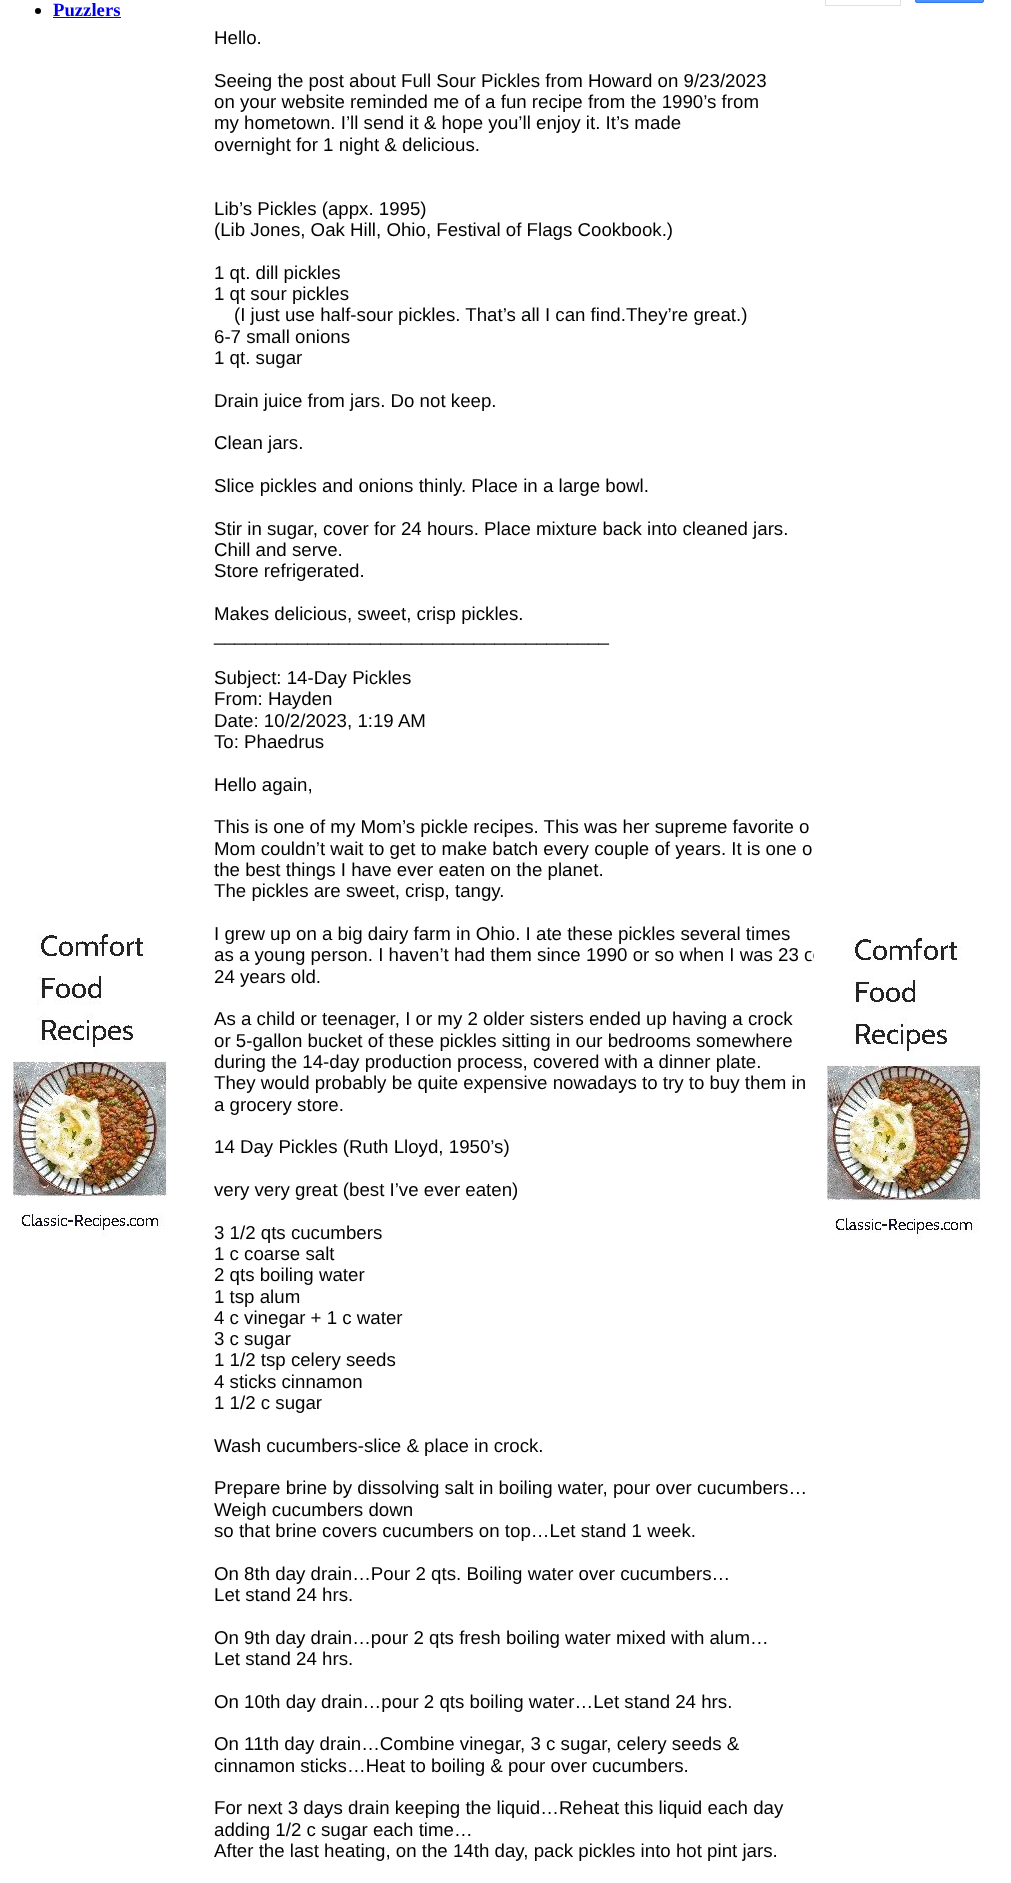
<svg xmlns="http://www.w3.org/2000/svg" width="1011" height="1883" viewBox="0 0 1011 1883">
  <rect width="100%" height="100%" fill="#ffffff"/>
  <circle cx="38" cy="11" r="3" fill="#000000"/>
  <text x="53" y="16" font-family="Liberation Serif" font-size="18.7" font-weight="bold" fill="#0000ee">Puzzlers</text>
  <rect x="53" y="17" width="68" height="1" fill="#0000ee"/>
  <image x="13" y="933" width="155" height="304" href="img1.png"/>
  <text x="214" y="961" font-family="Liberation Sans" font-size="18.7" fill="#000000">as a young person. I haven’t had them since 1990 or so when I was 23 o</text>
  <rect x="811" y="952" width="2" height="8" fill="#ffffff"/>
  <rect x="825.5" y="-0.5" width="75" height="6" fill="none" stroke="#dfe1e5"/>
  <rect x="915.5" y="-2.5" width="68" height="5" rx="1.5" fill="#4d90fe" stroke="#3079ed"/>
  <image x="827" y="937" width="155" height="304" href="img1.png"/>
  <text x="214" y="44" font-family="Liberation Sans" font-size="18.7" fill="#000000">Hello.</text>
  <text x="214" y="87" font-family="Liberation Sans" font-size="18.7" fill="#000000">Seeing the post about Full Sour Pickles from Howard on 9/23/2023</text>
  <text x="214" y="108" font-family="Liberation Sans" font-size="18.7" fill="#000000">on your website reminded me of a fun recipe from the 1990’s from</text>
  <text x="214" y="129" font-family="Liberation Sans" font-size="18.7" fill="#000000">my hometown. I’ll send it &amp; hope you’ll enjoy it. It’s made</text>
  <text x="214" y="151" font-family="Liberation Sans" font-size="18.7" fill="#000000">overnight for 1 night &amp; delicious.</text>
  <text x="214" y="215" font-family="Liberation Sans" font-size="18.7" fill="#000000">Lib’s Pickles (appx. 1995)</text>
  <text x="214" y="236" font-family="Liberation Sans" font-size="18.7" fill="#000000">(Lib Jones, Oak Hill, Ohio, Festival of Flags Cookbook.)</text>
  <text x="214" y="279" font-family="Liberation Sans" font-size="18.7" fill="#000000">1 qt. dill pickles</text>
  <text x="214" y="300" font-family="Liberation Sans" font-size="18.7" fill="#000000">1 qt sour pickles</text>
  <text x="234" y="321" font-family="Liberation Sans" font-size="18.7" fill="#000000">(I just use half-sour pickles. That’s all I can find.They’re great.)</text>
  <text x="214" y="343" font-family="Liberation Sans" font-size="18.7" fill="#000000">6-7 small onions</text>
  <text x="214" y="364" font-family="Liberation Sans" font-size="18.7" fill="#000000">1 qt. sugar</text>
  <text x="214" y="407" font-family="Liberation Sans" font-size="18.7" fill="#000000">Drain juice from jars. Do not keep.</text>
  <text x="214" y="449" font-family="Liberation Sans" font-size="18.7" fill="#000000">Clean jars.</text>
  <text x="214" y="492" font-family="Liberation Sans" font-size="18.7" fill="#000000">Slice pickles and onions thinly. Place in a large bowl.</text>
  <text x="214" y="535" font-family="Liberation Sans" font-size="18.7" fill="#000000">Stir in sugar, cover for 24 hours. Place mixture back into cleaned jars.</text>
  <text x="214" y="556" font-family="Liberation Sans" font-size="18.7" fill="#000000">Chill and serve.</text>
  <text x="214" y="577" font-family="Liberation Sans" font-size="18.7" fill="#000000">Store refrigerated.</text>
  <text x="214" y="620" font-family="Liberation Sans" font-size="18.7" fill="#000000">Makes delicious, sweet, crisp pickles.</text>
  <text x="214" y="641" font-family="Liberation Sans" font-size="18.7" fill="#000000">______________________________________</text>
  <text x="214" y="684" font-family="Liberation Sans" font-size="18.7" fill="#000000">Subject: 14-Day Pickles</text>
  <text x="214" y="705" font-family="Liberation Sans" font-size="18.7" fill="#000000">From: Hayden</text>
  <text x="214" y="727" font-family="Liberation Sans" font-size="18.7" fill="#000000">Date: 10/2/2023, 1:19 AM</text>
  <text x="214" y="748" font-family="Liberation Sans" font-size="18.7" fill="#000000">To: Phaedrus</text>
  <text x="214" y="791" font-family="Liberation Sans" font-size="18.7" fill="#000000">Hello again,</text>
  <text x="214" y="833" font-family="Liberation Sans" font-size="18.7" fill="#000000">This is one of my Mom’s pickle recipes. This was her supreme favorite o</text>
  <text x="214" y="855" font-family="Liberation Sans" font-size="18.7" fill="#000000">Mom couldn’t wait to get to make batch every couple of years. It is one o</text>
  <text x="214" y="876" font-family="Liberation Sans" font-size="18.7" fill="#000000">the best things I have ever eaten on the planet.</text>
  <text x="214" y="897" font-family="Liberation Sans" font-size="18.7" fill="#000000">The pickles are sweet, crisp, tangy.</text>
  <text x="214" y="940" font-family="Liberation Sans" font-size="18.7" fill="#000000">I grew up on a big dairy farm in Ohio. I ate these pickles several times</text>
  <text x="214" y="983" font-family="Liberation Sans" font-size="18.7" fill="#000000">24 years old.</text>
  <text x="214" y="1025" font-family="Liberation Sans" font-size="18.7" fill="#000000">As a child or teenager, I or my 2 older sisters ended up having a crock</text>
  <text x="214" y="1047" font-family="Liberation Sans" font-size="18.7" fill="#000000">or 5-gallon bucket of these pickles sitting in our bedrooms somewhere</text>
  <text x="214" y="1068" font-family="Liberation Sans" font-size="18.7" fill="#000000">during the 14-day production process, covered with a dinner plate.</text>
  <text x="214" y="1089" font-family="Liberation Sans" font-size="18.7" fill="#000000">They would probably be quite expensive nowadays to try to buy them in</text>
  <text x="214" y="1111" font-family="Liberation Sans" font-size="18.7" fill="#000000">a grocery store.</text>
  <text x="214" y="1153" font-family="Liberation Sans" font-size="18.7" fill="#000000">14 Day Pickles (Ruth Lloyd, 1950’s)</text>
  <text x="214" y="1196" font-family="Liberation Sans" font-size="18.7" fill="#000000">very very great (best I’ve ever eaten)</text>
  <text x="214" y="1239" font-family="Liberation Sans" font-size="18.7" fill="#000000">3 1/2 qts cucumbers</text>
  <text x="214" y="1260" font-family="Liberation Sans" font-size="18.7" fill="#000000">1 c coarse salt</text>
  <text x="214" y="1281" font-family="Liberation Sans" font-size="18.7" fill="#000000">2 qts boiling water</text>
  <text x="214" y="1303" font-family="Liberation Sans" font-size="18.7" fill="#000000">1 tsp alum</text>
  <text x="214" y="1324" font-family="Liberation Sans" font-size="18.7" fill="#000000">4 c vinegar + 1 c water</text>
  <text x="214" y="1345" font-family="Liberation Sans" font-size="18.7" fill="#000000">3 c sugar</text>
  <text x="214" y="1366" font-family="Liberation Sans" font-size="18.7" fill="#000000">1 1/2 tsp celery seeds</text>
  <text x="214" y="1388" font-family="Liberation Sans" font-size="18.7" fill="#000000">4 sticks cinnamon</text>
  <text x="214" y="1409" font-family="Liberation Sans" font-size="18.7" fill="#000000">1 1/2 c sugar</text>
  <text x="214" y="1452" font-family="Liberation Sans" font-size="18.7" fill="#000000">Wash cucumbers-slice &amp; place in crock.</text>
  <text x="214" y="1494" font-family="Liberation Sans" font-size="18.7" fill="#000000">Prepare brine by dissolving salt in boiling water, pour over cucumbers…</text>
  <text x="214" y="1516" font-family="Liberation Sans" font-size="18.7" fill="#000000">Weigh cucumbers down</text>
  <text x="214" y="1537" font-family="Liberation Sans" font-size="18.7" fill="#000000">so that brine covers cucumbers on top…Let stand 1 week.</text>
  <text x="214" y="1580" font-family="Liberation Sans" font-size="18.7" fill="#000000">On 8th day drain…Pour 2 qts. Boiling water over cucumbers…</text>
  <text x="214" y="1601" font-family="Liberation Sans" font-size="18.7" fill="#000000">Let stand 24 hrs.</text>
  <text x="214" y="1644" font-family="Liberation Sans" font-size="18.7" fill="#000000">On 9th day drain…pour 2 qts fresh boiling water mixed with alum…</text>
  <text x="214" y="1665" font-family="Liberation Sans" font-size="18.7" fill="#000000">Let stand 24 hrs.</text>
  <text x="214" y="1708" font-family="Liberation Sans" font-size="18.7" fill="#000000">On 10th day drain…pour 2 qts boiling water…Let stand 24 hrs.</text>
  <text x="214" y="1750" font-family="Liberation Sans" font-size="18.7" fill="#000000">On 11th day drain…Combine vinegar, 3 c sugar, celery seeds &amp;</text>
  <text x="214" y="1772" font-family="Liberation Sans" font-size="18.7" fill="#000000">cinnamon sticks…Heat to boiling &amp; pour over cucumbers.</text>
  <text x="214" y="1814" font-family="Liberation Sans" font-size="18.7" fill="#000000">For next 3 days drain keeping the liquid…Reheat this liquid each day</text>
  <text x="214" y="1836" font-family="Liberation Sans" font-size="18.7" fill="#000000">adding 1/2 c sugar each time…</text>
  <text x="214" y="1857" font-family="Liberation Sans" font-size="18.7" fill="#000000">After the last heating, on the 14th day, pack pickles into hot pint jars.</text>
</svg>
